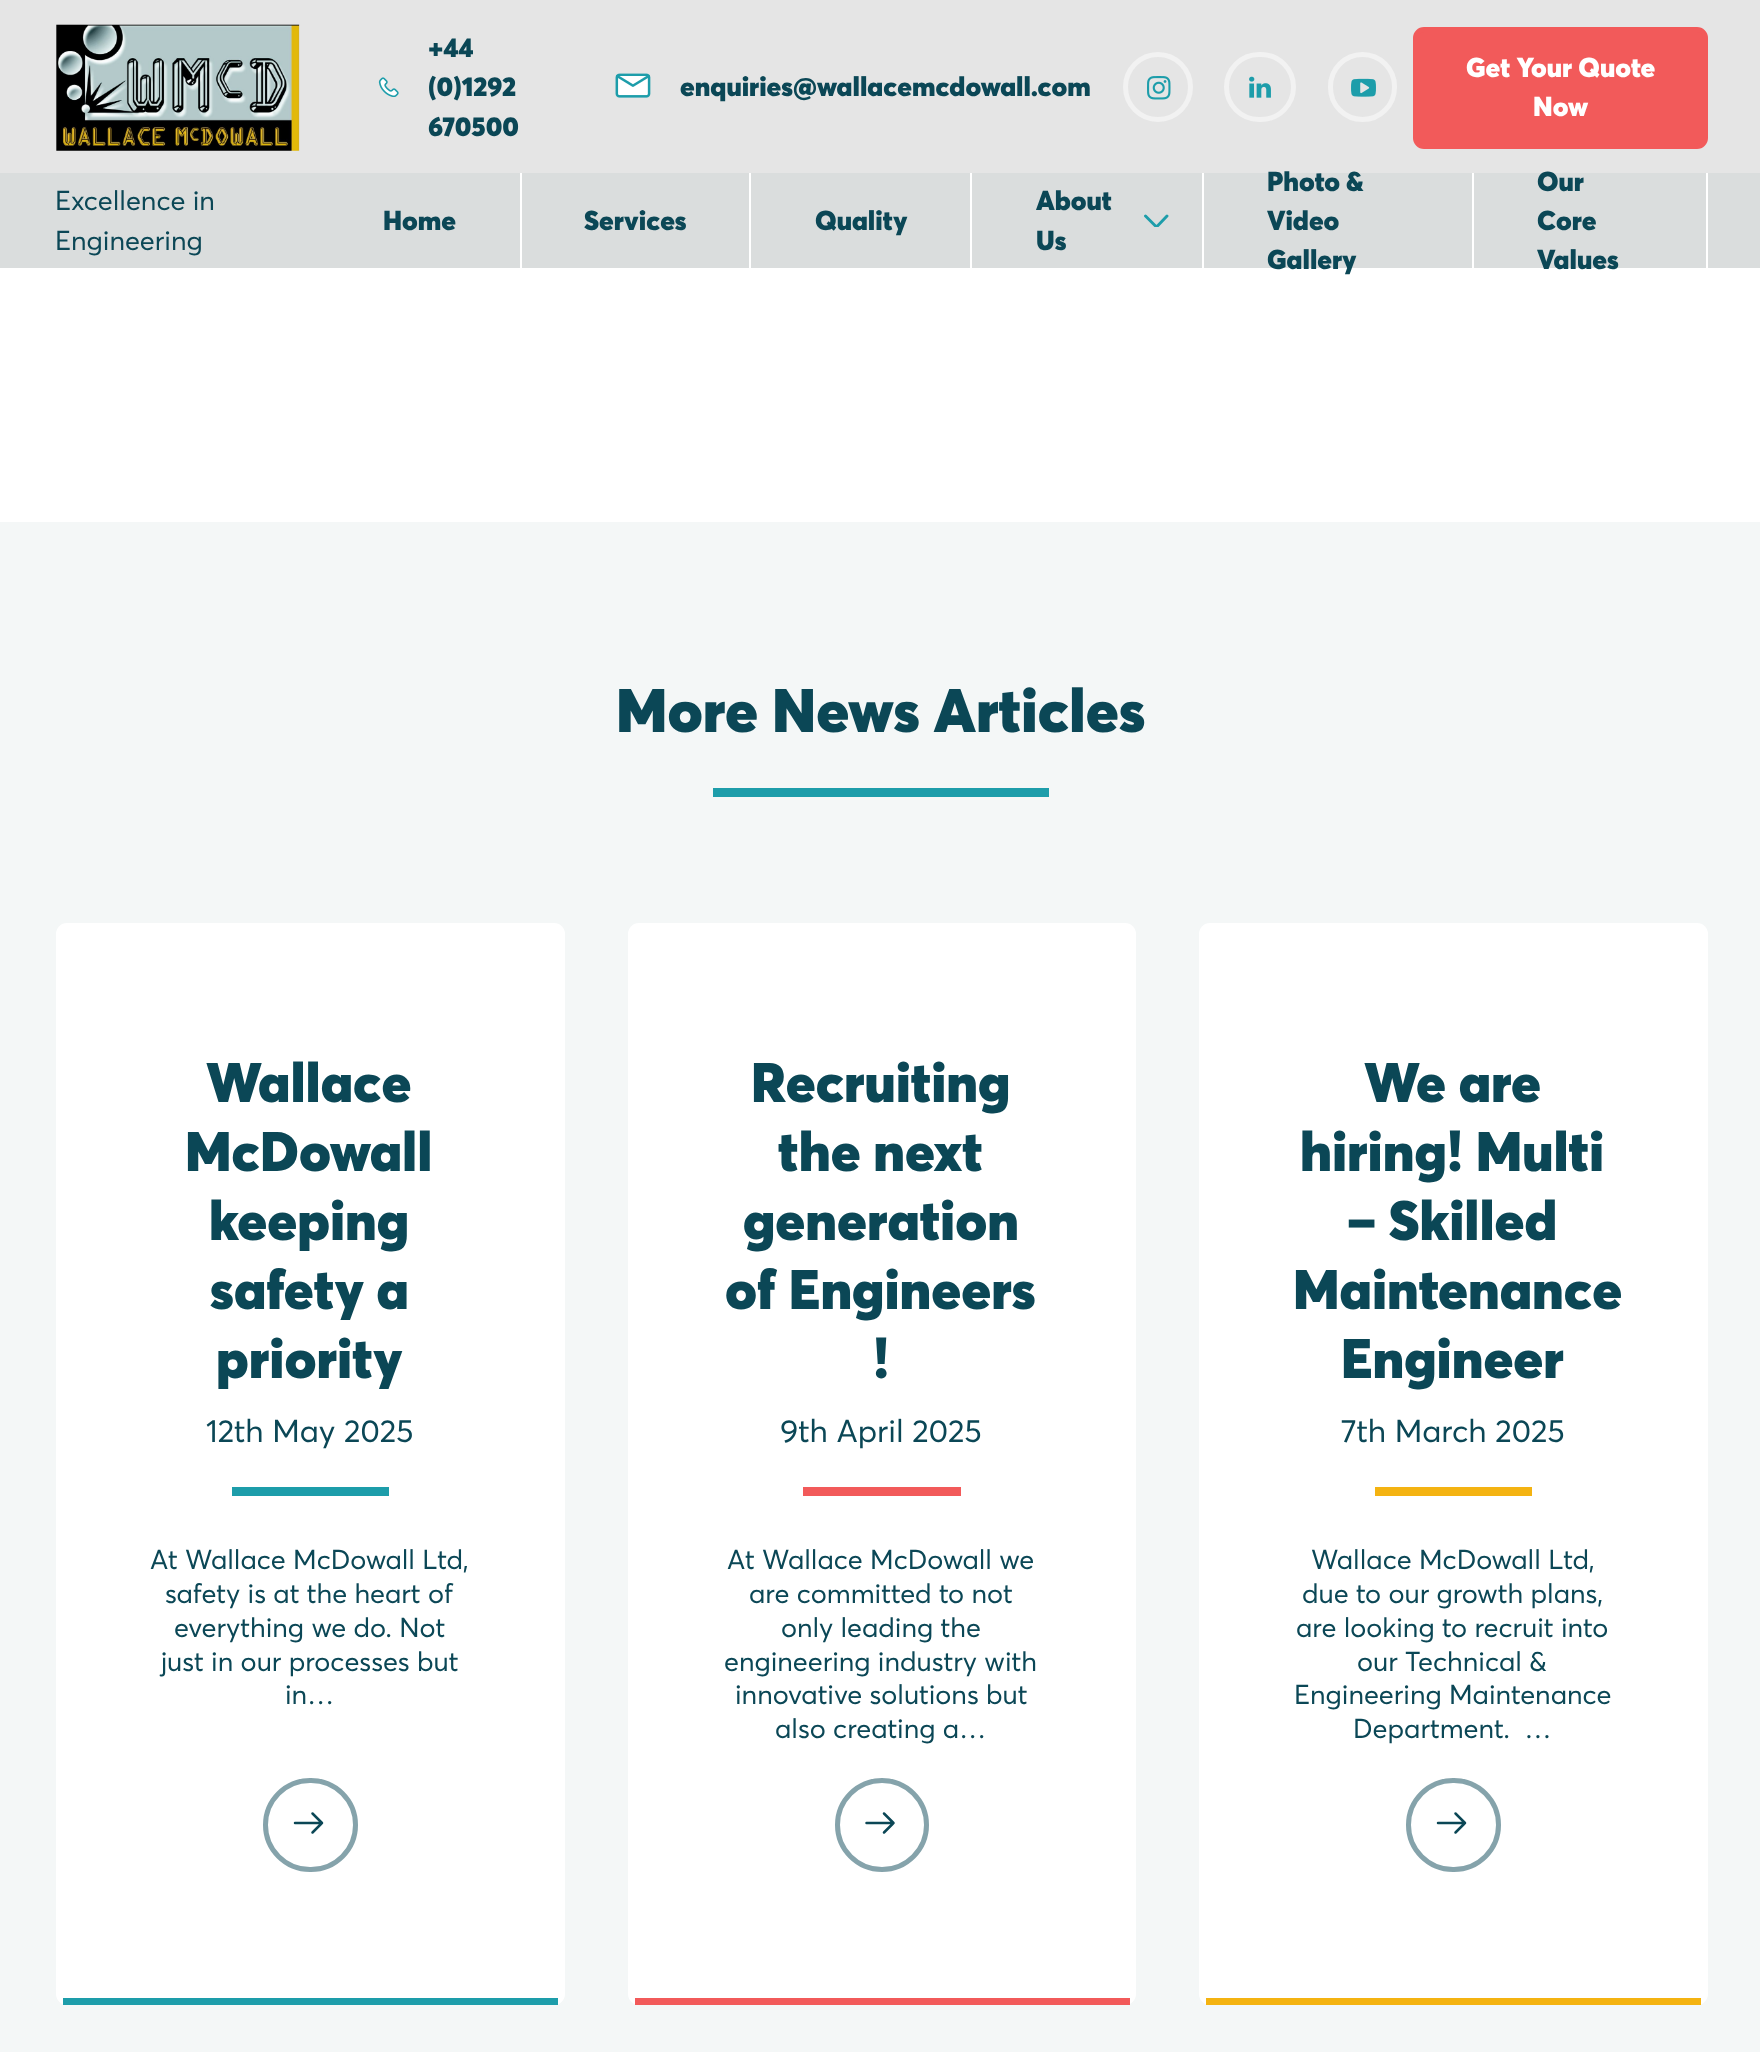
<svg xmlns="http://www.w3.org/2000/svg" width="1760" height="2052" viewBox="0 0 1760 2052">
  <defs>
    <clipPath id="clip1"><rect x="1143" y="214" width="27" height="13"/></clipPath>
  </defs>
  <rect width="100%" height="100%" fill="#ffffff"/>
  <rect x="0" y="0" width="1760" height="173" fill="#e5e5e5"/>
  <image x="56" y="24" width="244" height="127" href="img1.png"/>
  <image x="378" y="77" width="21" height="20" href="img2.png"/>
  <text x="428" y="57" font-family="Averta" font-size="27" font-weight="900" fill="#0b4756">+44</text>
  <text x="428" y="96" font-family="Averta" font-size="27" font-weight="900" fill="#0b4756">(0)1292</text>
  <text x="428" y="136" font-family="Averta" font-size="27" font-weight="900" fill="#0b4756">670500</text>
  <image x="615" y="73" width="36" height="25" href="img3.png"/>
  <text x="680" y="96" font-family="Averta" font-size="27" font-weight="900" fill="#0b4756">enquiries@wallacemcdowall.com</text>
  <circle cx="1158" cy="87" r="32.5" fill="none" stroke="#f2f2f2" stroke-width="5"/>
  <image x="1147" y="76" width="24" height="24" href="img4.png"/>
  <rect x="1226.5" y="54.5" width="67" height="65" rx="32.5" fill="none" stroke="#f2f2f2" stroke-width="5"/>
  <image x="1249" y="76" width="22" height="22" href="img5.png"/>
  <rect x="1330.5" y="54.5" width="64" height="65" rx="32" fill="none" stroke="#f2f2f2" stroke-width="5"/>
  <image x="1351" y="78" width="25" height="19" href="img6.png"/>
  <rect x="1415.5" y="29.5" width="290" height="117" rx="8.5" fill="#f25a5a" stroke="#f25a5a" stroke-width="5"/>
  <text x="1466" y="77" font-family="Averta" font-size="27" font-weight="900" fill="#ffffff">Get Your Quote</text>
  <text x="1533" y="116" font-family="Averta" font-size="27" font-weight="900" fill="#ffffff">Now</text>
  <rect x="0" y="173" width="1760" height="95" fill="#dadddd"/>
  <text x="55" y="210" font-family="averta" font-size="27" fill="#0b4756">Excellence in</text>
  <text x="55" y="250" font-family="averta" font-size="27" fill="#0b4756">Engineering</text>
  <rect x="520" y="173" width="2" height="95" fill="#ffffff"/>
  <text x="383" y="230" font-family="Averta" font-size="27" font-weight="900" fill="#0b4756">Home</text>
  <rect x="749" y="173" width="2" height="95" fill="#ffffff"/>
  <text x="584" y="230" font-family="Averta" font-size="27" font-weight="900" fill="#0b4756">Services</text>
  <rect x="970" y="173" width="2" height="95" fill="#ffffff"/>
  <text x="815" y="230" font-family="Averta" font-size="27" font-weight="900" fill="#0b4756">Quality</text>
  <g clip-path="url(#clip1)">
    <path d="M1167 216L1156.5 227L1145.5 216" fill="none" stroke="#1d9daa" stroke-width="2.9" stroke-linecap="round" stroke-linejoin="round"/>
  </g>
  <rect x="1202" y="173" width="2" height="95" fill="#ffffff"/>
  <text x="1036" y="210" font-family="Averta" font-size="27" font-weight="900" fill="#0b4756">About</text>
  <text x="1036" y="250" font-family="Averta" font-size="27" font-weight="900" fill="#0b4756">Us</text>
  <rect x="1472" y="173" width="2" height="95" fill="#ffffff"/>
  <text x="1267" y="191" font-family="Averta" font-size="27" font-weight="900" fill="#0b4756">Photo &amp;</text>
  <text x="1267" y="230" font-family="Averta" font-size="27" font-weight="900" fill="#0b4756">Video</text>
  <text x="1267" y="269" font-family="Averta" font-size="27" font-weight="900" fill="#0b4756">Gallery</text>
  <rect x="1706" y="173" width="2" height="95" fill="#ffffff"/>
  <text x="1537" y="191" font-family="Averta" font-size="27" font-weight="900" fill="#0b4756">Our</text>
  <text x="1537" y="230" font-family="Averta" font-size="27" font-weight="900" fill="#0b4756">Core</text>
  <text x="1537" y="269" font-family="Averta" font-size="27" font-weight="900" fill="#0b4756">Values</text>
  <rect x="0" y="522" width="1760" height="1530" fill="#f4f7f7"/>
  <text x="616" y="732" font-family="Averta" font-size="60.75" font-weight="900" fill="#0b4756">More News Articles</text>
  <rect x="713" y="788" width="336" height="9" fill="#1d9daa"/>
  <rect x="56" y="923" width="509" height="1082" rx="11" fill="#ffffff"/>
  <rect x="63" y="1998" width="495" height="7" fill="#1d9daa"/>
  <text x="206" y="1102" font-family="Averta" font-size="55" font-weight="900" fill="#0b4756">Wallace</text>
  <text x="185" y="1171" font-family="Averta" font-size="55" font-weight="900" fill="#0b4756">McDowall</text>
  <text x="209" y="1240" font-family="Averta" font-size="55" font-weight="900" fill="#0b4756">keeping</text>
  <text x="210" y="1309" font-family="Averta" font-size="55" font-weight="900" fill="#0b4756">safety a</text>
  <text x="216" y="1378" font-family="Averta" font-size="55" font-weight="900" fill="#0b4756">priority</text>
  <text x="206" y="1442" font-family="averta" font-size="31.5" fill="#0b4756">12th May 2025</text>
  <rect x="232" y="1487" width="157" height="9" fill="#1d9daa"/>
  <text x="150" y="1569" font-family="averta" font-size="27" fill="#0b4756">At Wallace McDowall Ltd,</text>
  <text x="165" y="1603" font-family="averta" font-size="27" fill="#0b4756">safety is at the heart of</text>
  <text x="174" y="1637" font-family="averta" font-size="27" fill="#0b4756">everything we do. Not</text>
  <text x="161" y="1671" font-family="averta" font-size="27" fill="#0b4756">just in our processes but</text>
  <text x="285" y="1704" font-family="averta" font-size="27" fill="#0b4756">in…</text>
  <rect x="265.5" y="1780.5" width="90" height="89" rx="44.5" fill="none" stroke="#85a3ab" stroke-width="5"/>
  <path d="M322 1823H295M312.5 1813.5L322 1823L312.5 1832.5" fill="none" stroke="#0b4756" stroke-width="2.5" stroke-linecap="round" stroke-linejoin="round"/>
  <rect x="628" y="923" width="508" height="1082" rx="11" fill="#ffffff"/>
  <rect x="635" y="1998" width="495" height="7" fill="#f25a5a"/>
  <text x="751" y="1102" font-family="Averta" font-size="55" font-weight="900" fill="#0b4756">Recruiting</text>
  <text x="778" y="1171" font-family="Averta" font-size="55" font-weight="900" fill="#0b4756">the next</text>
  <text x="743" y="1240" font-family="Averta" font-size="55" font-weight="900" fill="#0b4756">generation</text>
  <text x="725" y="1309" font-family="Averta" font-size="55" font-weight="900" fill="#0b4756">of Engineers</text>
  <text x="873" y="1378" font-family="Averta" font-size="55" font-weight="900" fill="#0b4756">!</text>
  <text x="780" y="1442" font-family="averta" font-size="31.5" fill="#0b4756">9th April 2025</text>
  <rect x="803" y="1487" width="158" height="9" fill="#f25a5a"/>
  <text x="727" y="1569" font-family="averta" font-size="27" fill="#0b4756">At Wallace McDowall we</text>
  <text x="749" y="1603" font-family="averta" font-size="27" fill="#0b4756">are committed to not</text>
  <text x="781" y="1637" font-family="averta" font-size="27" fill="#0b4756">only leading the</text>
  <text x="724" y="1671" font-family="averta" font-size="27" fill="#0b4756">engineering industry with</text>
  <text x="735" y="1704" font-family="averta" font-size="27" fill="#0b4756">innovative solutions but</text>
  <text x="775" y="1738" font-family="averta" font-size="27" fill="#0b4756">also creating a…</text>
  <circle cx="882" cy="1825" r="44.5" fill="none" stroke="#85a3ab" stroke-width="5"/>
  <path d="M893.5 1823H866.5M884 1813.5L893.5 1823L884 1832.5" fill="none" stroke="#0b4756" stroke-width="2.5" stroke-linecap="round" stroke-linejoin="round"/>
  <rect x="1199" y="923" width="509" height="1082" rx="11" fill="#ffffff"/>
  <rect x="1206" y="1998" width="495" height="7" fill="#f4b311"/>
  <text x="1364" y="1102" font-family="Averta" font-size="55" font-weight="900" fill="#0b4756">We are</text>
  <text x="1300" y="1171" font-family="Averta" font-size="55" font-weight="900" fill="#0b4756">hiring! Multi</text>
  <text x="1347" y="1240" font-family="Averta" font-size="55" font-weight="900" fill="#0b4756">– Skilled</text>
  <text x="1293" y="1309" font-family="Averta" font-size="55" font-weight="900" fill="#0b4756">Maintenance</text>
  <text x="1341" y="1378" font-family="Averta" font-size="55" font-weight="900" fill="#0b4756">Engineer</text>
  <text x="1341" y="1442" font-family="averta" font-size="31.5" fill="#0b4756">7th March 2025</text>
  <rect x="1375" y="1487" width="157" height="9" fill="#f4b311"/>
  <text x="1311" y="1569" font-family="averta" font-size="27" fill="#0b4756">Wallace McDowall Ltd,</text>
  <text x="1302" y="1603" font-family="averta" font-size="27" fill="#0b4756">due to our growth plans,</text>
  <text x="1296" y="1637" font-family="averta" font-size="27" fill="#0b4756">are looking to recruit into</text>
  <text x="1357" y="1671" font-family="averta" font-size="27" fill="#0b4756">our Technical &amp;</text>
  <text x="1294" y="1704" font-family="averta" font-size="27" fill="#0b4756">Engineering Maintenance</text>
  <text x="1353" y="1738" font-family="averta" font-size="27" fill="#0b4756" xml:space="preserve">Department.  …</text>
  <rect x="1408.5" y="1780.5" width="90" height="89" rx="44.5" fill="none" stroke="#85a3ab" stroke-width="5"/>
  <path d="M1465 1823H1438M1455.5 1813.5L1465 1823L1455.5 1832.5" fill="none" stroke="#0b4756" stroke-width="2.5" stroke-linecap="round" stroke-linejoin="round"/>
</svg>
